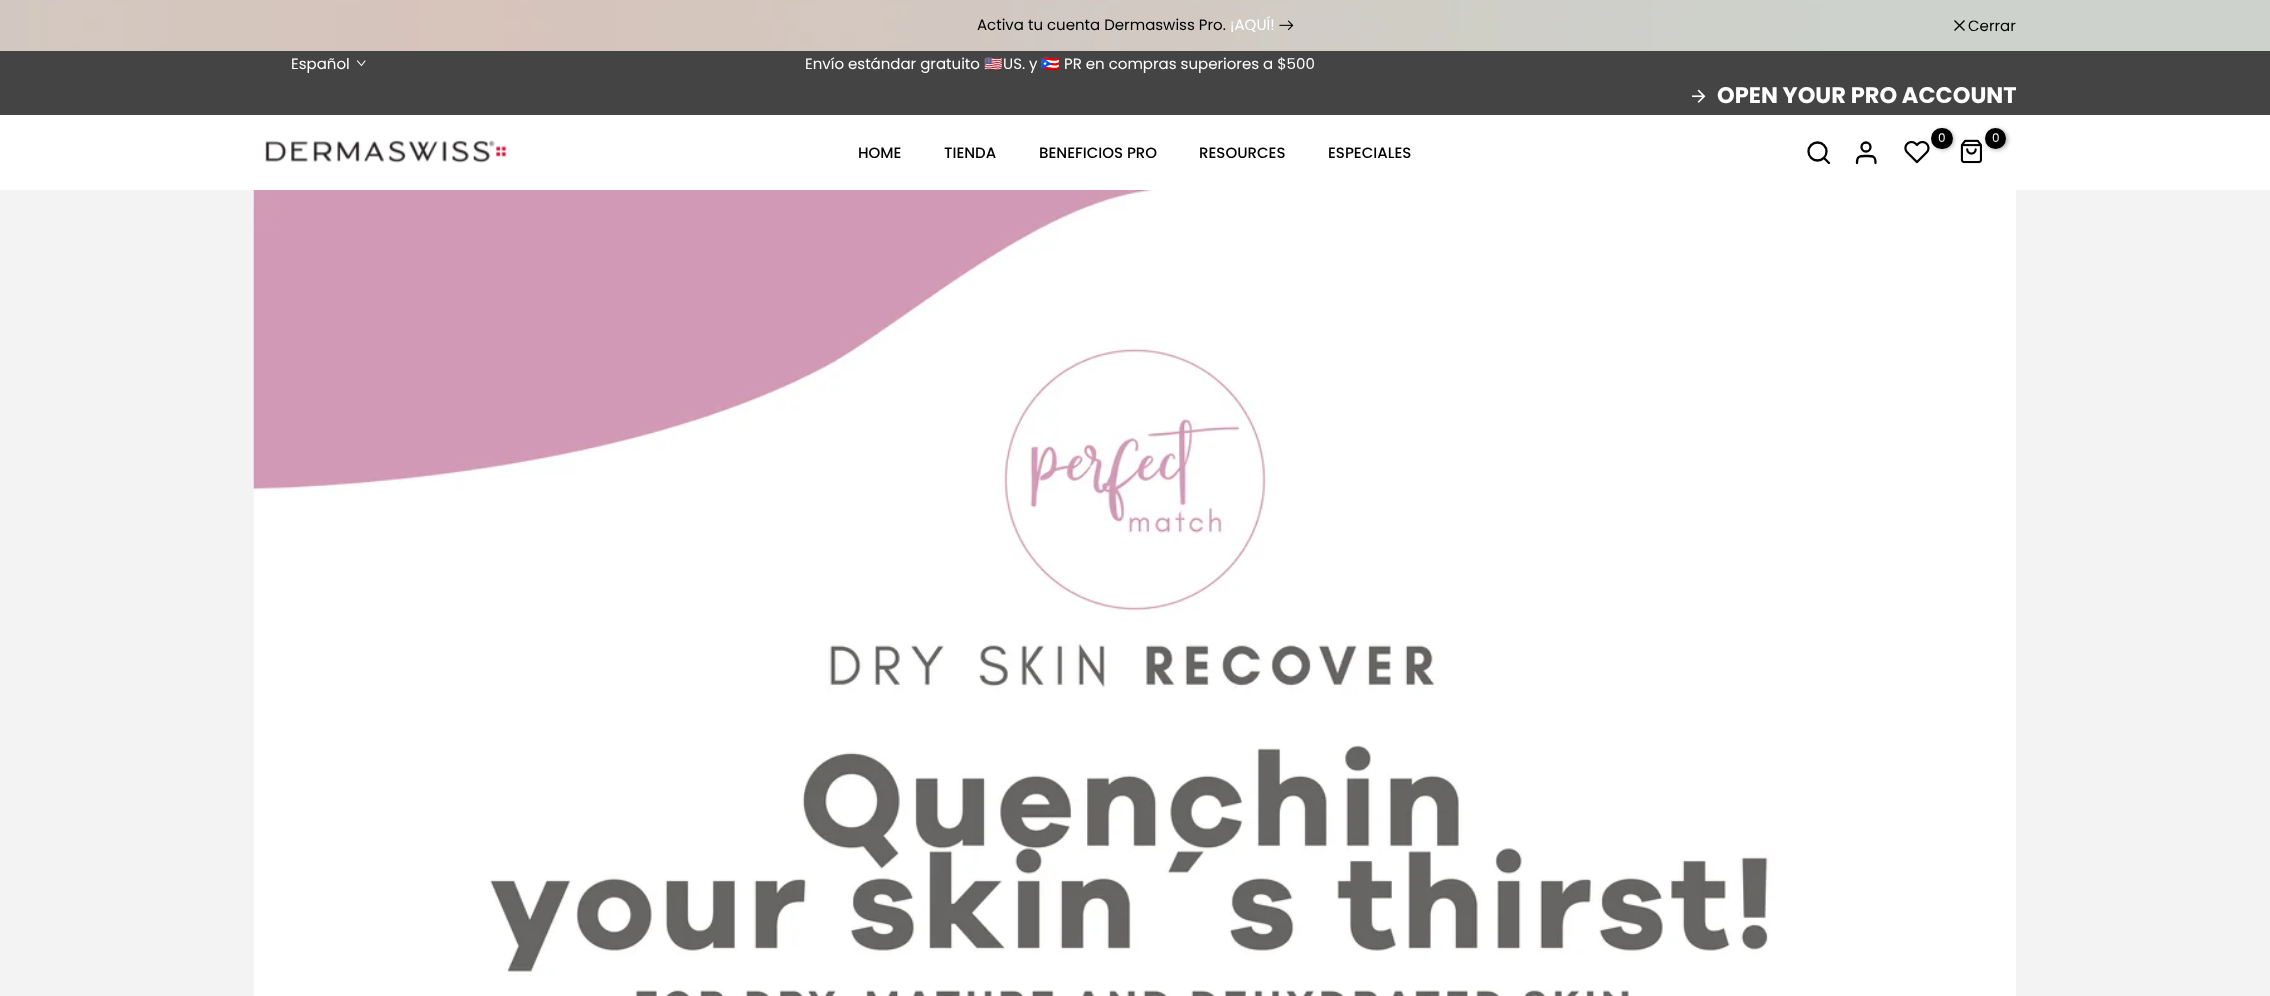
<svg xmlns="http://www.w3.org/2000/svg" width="2270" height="996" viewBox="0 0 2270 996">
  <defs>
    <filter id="blur1" x="-50%" y="-200%" width="200%" height="500%"><feGaussianBlur stdDeviation="2"/></filter>
  </defs>
  <rect width="100%" height="100%" fill="#ffffff"/>
  <image x="0" y="0" width="2270" height="51" href="img1.png"/>
  <text x="977" y="30" font-family="Poppins" font-size="15" fill="#000000">Activa tu cuenta Dermaswiss Pro.</text>
  <text x="1230" y="30" font-family="Poppins" font-size="15" fill="#ffffff">¡AQUÍ!</text>
  <image x="1279" y="20" width="15" height="10" href="img2.png"/>
  <path d="M1964.5 20.5L1954.5 30.5M1964.5 30.5L1954.5 20.5" fill="none" stroke="#000000" stroke-width="1.4"/>
  <text x="1968" y="31" font-family="Poppins" font-size="15" fill="#000000">Cerrar</text>
  <rect x="0" y="51" width="2270" height="64" fill="#444444"/>
  <text x="291" y="69" font-family="Poppins" font-size="15" fill="#ffffff">Español</text>
  <path d="M365 61L361.5 65.5L357.5 61" fill="none" stroke="#ffffff" stroke-width="1.1" stroke-linecap="square"/>
  <text x="805" y="69" font-family="Poppins" font-size="15" fill="#ffffff">Envío estándar gratuito</text>
  <text x="984" y="69" font-family="Noto Color Emoji" font-size="15" fill="#ffffff">🇺🇲</text>
  <text x="1003" y="69" font-family="Poppins" font-size="15" fill="#ffffff">US. y</text>
  <text x="1041" y="69" font-family="Noto Color Emoji" font-size="15" fill="#ffffff">🇵🇷</text>
  <text x="1064" y="69" font-family="Poppins" font-size="15" fill="#ffffff">PR en compras superiores a $500</text>
  <image x="1692" y="89" width="14" height="14" href="img3.png"/>
  <text x="1717" y="103" font-family="Poppins" font-size="22.5" font-weight="bold" fill="#ffffff">OPEN YOUR PRO ACCOUNT</text>
  <image x="1904" y="140" width="26" height="24" href="img4.png"/>
  <rect x="1933" y="129" width="21" height="21" rx="10.5" fill="#000000" fill-opacity="0.3" filter="url(#blur1)"/>
  <rect x="1931" y="128" width="22" height="21" rx="10.5" fill="#000000"/>
  <text x="1938" y="142" font-family="Poppins" font-size="12" fill="#ffffff">0</text>
  <image x="1960" y="139" width="22" height="25" href="img5.png"/>
  <rect x="1986" y="129" width="22" height="21" rx="10.5" fill="#000000" fill-opacity="0.3" filter="url(#blur1)"/>
  <circle cx="1995.5" cy="138.5" r="10.5" fill="#000000"/>
  <text x="1992" y="142" font-family="Poppins" font-size="12" fill="#ffffff">0</text>
  <circle cx="1817.5" cy="151.5" r="9" fill="none" stroke="#000000" stroke-width="2.3"/>
  <path d="M1829 163L1824 158M1875.5 163C1875.5 155.5 1872.5 156 1866 156C1860 156 1857 155.5 1857 163" fill="none" stroke="#000000" stroke-width="2.3" stroke-linecap="round" stroke-linejoin="round"/>
  <circle cx="1866" cy="147" r="4.5" fill="none" stroke="#000000" stroke-width="2.3"/>
  <image x="265" y="140" width="242" height="23" href="img6.png"/>
  <text x="858" y="158" font-family="Poppins" font-size="15" font-weight="500" fill="#000000">HOME</text>
  <text x="944" y="158" font-family="Poppins" font-size="15" font-weight="500" fill="#000000">TIENDA</text>
  <text x="1039" y="158" font-family="Poppins" font-size="15" font-weight="500" fill="#000000">BENEFICIOS PRO</text>
  <text x="1199" y="158" font-family="Poppins" font-size="15" font-weight="500" fill="#000000">RESOURCES</text>
  <text x="1328" y="158" font-family="Poppins" font-size="15" font-weight="500" fill="#000000">ESPECIALES</text>
  <rect x="0" y="190" width="2270" height="806" fill="#f3f3f3"/>
  <image x="253" y="190" width="1763" height="806" href="img7.png"/>
</svg>
